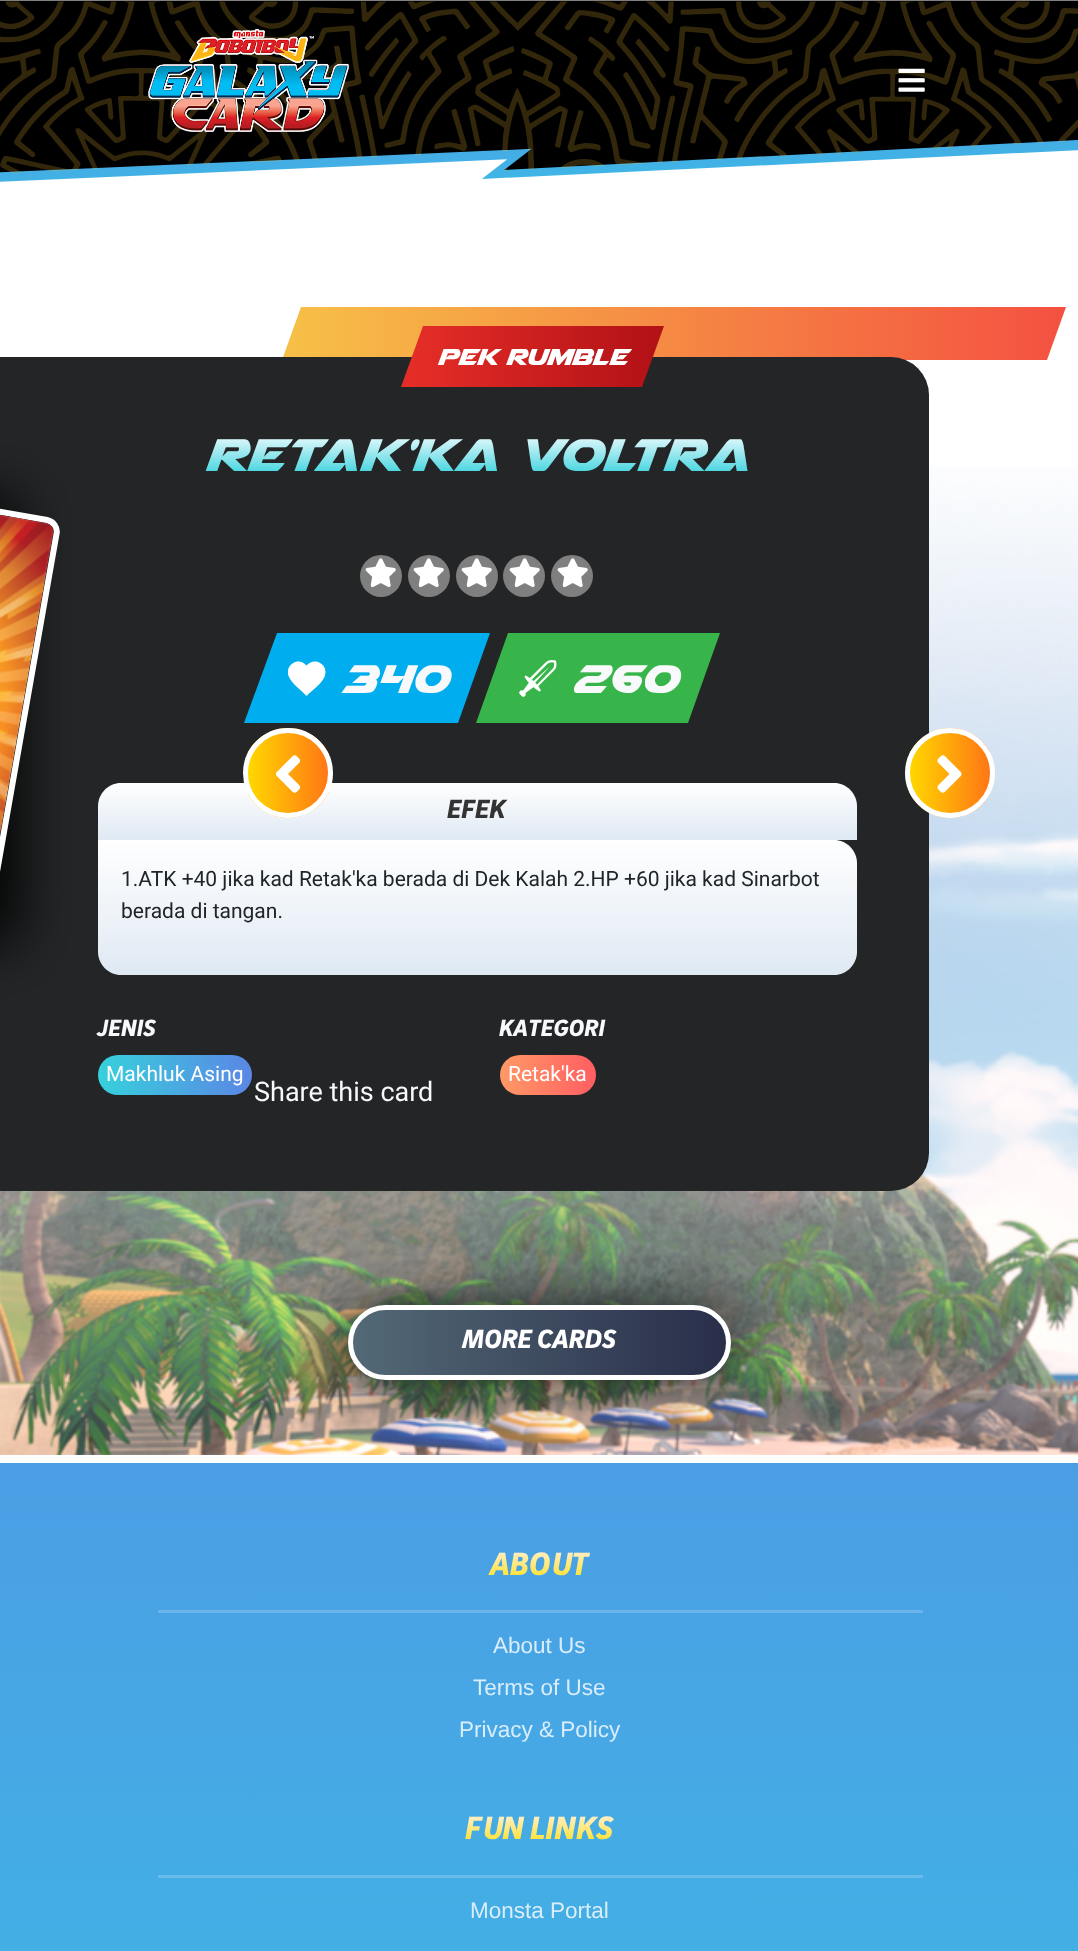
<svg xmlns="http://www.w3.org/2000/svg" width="1078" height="1951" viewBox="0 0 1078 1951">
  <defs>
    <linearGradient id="g1" gradientUnits="userSpaceOnUse" x1="1057" y1="333" x2="292" y2="333"><stop offset="0" stop-color="#f45241"/><stop offset="1" stop-color="#f7bf47"/></linearGradient>
    <clipPath id="clip1"><path d="M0 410H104V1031H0ZM-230.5 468L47.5 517C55.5 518.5 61 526.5 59.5 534.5L-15.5 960C-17 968-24.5 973.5-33 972L-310.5 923C-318.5 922-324 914-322.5 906L-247.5 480.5C-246 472-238.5 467-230.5 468Z" clip-rule="evenodd"/></clipPath>
    <filter id="blur1" x="-50%" y="-200%" width="200%" height="500%"><feGaussianBlur stdDeviation="28.5"/></filter>
    <linearGradient id="g2" gradientUnits="userSpaceOnUse" x1="476" y1="477" x2="476" y2="432"><stop offset="0" stop-color="#36d1dc"/><stop offset="1" stop-color="#f5fdff"/></linearGradient>
    <linearGradient id="g3" gradientUnits="userSpaceOnUse" x1="412" y1="356" x2="653" y2="356"><stop offset="0" stop-color="#e52d27"/><stop offset="1" stop-color="#b31217"/></linearGradient>
    <linearGradient id="g4" gradientUnits="userSpaceOnUse" x1="477" y1="840" x2="477" y2="783"><stop offset="0" stop-color="#dfe9f3"/><stop offset="1" stop-color="#ffffff"/></linearGradient>
    <linearGradient id="g5" gradientUnits="userSpaceOnUse" x1="477" y1="975" x2="477" y2="840"><stop offset="0" stop-color="#dfe9f3"/><stop offset="1" stop-color="#ffffff"/></linearGradient>
    <linearGradient id="g6" gradientUnits="userSpaceOnUse" x1="98" y1="1075" x2="252" y2="1075"><stop offset="0" stop-color="#36d1dc"/><stop offset="1" stop-color="#5b86e5"/></linearGradient>
    <linearGradient id="g7" gradientUnits="userSpaceOnUse" x1="500" y1="1075" x2="596" y2="1075"><stop offset="0" stop-color="#ff9966"/><stop offset="1" stop-color="#ff5e62"/></linearGradient>
    <clipPath id="clip2"><rect x="243" y="728" width="90" height="90" rx="45"/></clipPath>
    <linearGradient id="g8" gradientUnits="userSpaceOnUse" x1="248" y1="773" x2="329" y2="773"><stop offset="0" stop-color="#ffd800"/><stop offset="1" stop-color="#ff7615"/></linearGradient>
    <clipPath id="clip3"><rect x="905" y="728" width="90" height="90" rx="45"/></clipPath>
    <linearGradient id="g9" gradientUnits="userSpaceOnUse" x1="909" y1="773" x2="990" y2="773"><stop offset="0" stop-color="#ffd800"/><stop offset="1" stop-color="#ff7615"/></linearGradient>
    <clipPath id="clip4"><rect x="348" y="1305" width="383" height="75" rx="37.5"/></clipPath>
    <linearGradient id="g10" gradientUnits="userSpaceOnUse" x1="353" y1="1343" x2="726" y2="1343"><stop offset="0" stop-color="#536976"/><stop offset="1" stop-color="#292e49"/></linearGradient>
    <linearGradient id="g11" gradientUnits="userSpaceOnUse" x1="539" y1="1586" x2="539" y2="1546"><stop offset="0" stop-color="#ffde00"/><stop offset="1" stop-color="#fff1e3"/></linearGradient>
    <linearGradient id="g12" gradientUnits="userSpaceOnUse" x1="539" y1="1850" x2="539" y2="1811"><stop offset="0" stop-color="#ffde00"/><stop offset="1" stop-color="#fff1e3"/></linearGradient>
    <linearGradient id="g13" gradientUnits="userSpaceOnUse" x1="539" y1="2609" x2="539" y2="1463"><stop offset="0" stop-color="#37c6e6"/><stop offset="1" stop-color="#4b9ee4"/><stop offset="1" stop-color="#ff1515"/></linearGradient>
  </defs>
  <rect width="100%" height="100%" fill="#ffffff"/>
  <image x="0" y="0" width="1078" height="182" href="img1.png"/>
  <image x="148" y="29" width="201" height="103" href="img2.png"/>
  <image x="898" y="68" width="27" height="24" href="img3.png"/>
  <image x="0" y="467" width="1078" height="988" href="img4.png"/>
  <path d="M301 307H1066L1047 360H282Z" fill="url(#g1)"/>
  <rect x="-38" y="357" width="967" height="834" rx="38" fill="#232526"/>
  <g clip-path="url(#clip1)">
    <rect x="-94" y="497" width="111" height="447" rx="8" fill="#000000" filter="url(#blur1)"/>
  </g>
  <path d="M-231 471L47 520C53.5 521.5 58 527.5 56.5 534L-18.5 959.5C-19.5 966-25.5 970.5-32.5 969L-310 920.5C-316.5 919-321 913-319.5 906.5L-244.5 481C-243.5 474.5-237.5 470-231 471Z" fill="none" stroke="#ffffff" stroke-width="6"/>
  <image x="0" y="514" width="54" height="320" href="img5.png"/>
  <path d="M423 326H664L642 387H401Z" fill="url(#g3)"/>
  <text x="437" y="365" font-family="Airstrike" font-size="30" fill="#ffffff">PEK RUMBLE</text>
  <text x="204" y="471" font-family="Airstrike" font-size="60" fill="url(#g2)">Retak'ka Voltra</text>
  <circle cx="381" cy="576" r="21" fill="#7f7f7f"/>
  <image x="365" y="558" width="31" height="30" href="img6.png"/>
  <circle cx="429" cy="576" r="21" fill="#7f7f7f"/>
  <image x="413" y="558" width="31" height="30" href="img6.png"/>
  <circle cx="477" cy="576" r="21" fill="#7f7f7f"/>
  <image x="461" y="558" width="31" height="30" href="img6.png"/>
  <circle cx="524" cy="576" r="21" fill="#7f7f7f"/>
  <image x="509" y="558" width="31" height="30" href="img7.png"/>
  <circle cx="572" cy="576" r="21" fill="#7f7f7f"/>
  <image x="557" y="558" width="31" height="30" href="img7.png"/>
  <path d="M277 633H490L458 723H244Z" fill="#00aeef"/>
  <path d="M306.5 696C301 690 292.5 684.5 289 677C284 665 298.5 656 306.5 665.5C315 656 329.5 665 324.5 677C321 684.5 312.5 690 306.5 696Z" fill="#ffffff"/>
  <text x="340" y="693" font-family="Airstrike" font-size="52.5" fill="#f8f9fa">340</text>
  <path d="M508 633H720L688 723H476Z" fill="#38b54a"/>
  <image x="519" y="660" width="38" height="37" href="img8.png"/>
  <text x="571" y="693" font-family="Airstrike" font-size="52.5" fill="#f8f9fa">260</text>
  <path d="M121 783H834C846.5 783 857 793.5 857 806V840H98V806C98 793.5 108.5 783 121 783Z" fill="url(#g4)"/>
  <text x="447" y="818" font-family="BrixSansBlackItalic" font-size="27" font-weight="900" font-style="italic" fill="#333333">EFEK</text>
  <path d="M98 840H834C846.5 840 857 850.5 857 863V952C857 964.5 846.5 975 834 975H121C108.5 975 98 964.5 98 952Z" fill="url(#g5)"/>
  <text x="121" y="886" font-family="Roboto" font-size="21" fill="#212529">1.ATK +40 jika kad Retak'ka berada di Dek Kalah 2.HP +60 jika kad Sinarbot</text>
  <text x="121" y="918" font-family="Roboto" font-size="21" fill="#212529">berada di tangan.</text>
  <text x="97" y="1036" font-family="BrixSansBlackItalic" font-size="24" font-weight="900" font-style="italic" fill="#f8f9fa">JENIS</text>
  <rect x="98" y="1055" width="154" height="40" rx="20" fill="url(#g6)"/>
  <text x="106" y="1081" font-family="Roboto" font-size="21" fill="#ffffff">Makhluk Asing</text>
  <text x="499" y="1036" font-family="BrixSansBlackItalic" font-size="24" font-weight="900" font-style="italic" fill="#f8f9fa">KATEGORI</text>
  <rect x="500" y="1055" width="96" height="40" rx="20" fill="url(#g7)"/>
  <text x="508" y="1081" font-family="Roboto" font-size="21" fill="#ffffff">Retak'ka</text>
  <g clip-path="url(#clip2)">
    <rect x="248" y="728" width="81" height="90" fill="url(#g8)"/>
  </g>
  <circle cx="288" cy="773" r="42.5" fill="none" stroke="#ffffff" stroke-width="5"/>
  <image x="276" y="755" width="25" height="38" href="img9.png"/>
  <g clip-path="url(#clip3)">
    <rect x="909" y="728" width="81" height="90" fill="url(#g9)"/>
  </g>
  <circle cx="950" cy="773" r="42.5" fill="none" stroke="#ffffff" stroke-width="5"/>
  <image x="937" y="755" width="25" height="38" href="img10.png"/>
  <text x="254" y="1101" font-family="Roboto" font-size="27" fill="#f8f9fa">Share this card</text>
  <rect x="356" y="1313" width="367" height="60" rx="30" fill="#000000" filter="url(#blur1)"/>
  <g clip-path="url(#clip4)">
    <rect x="353" y="1305" width="373" height="75" fill="url(#g10)"/>
  </g>
  <rect x="350.5" y="1307.5" width="378" height="70" rx="35" fill="none" stroke="#ffffff" stroke-width="5"/>
  <text x="462" y="1348" font-family="BrixSansBlackItalic" font-size="27" font-weight="900" font-style="italic" fill="#ffffff">MORE CARDS</text>
  <rect x="0" y="1463" width="1078" height="488" fill="url(#g13)"/>
  <text x="490" y="1575" font-family="BrixSansBlackItalic" font-size="33" font-weight="900" font-style="italic" fill="url(#g11)">ABOUT</text>
  <rect x="158" y="1610" width="765" height="3" fill="#6bb4e9"/>
  <text x="493" y="1653" font-family="Liberation Sans" font-size="22.5" fill="#daedfa">About Us</text>
  <text x="473" y="1695" font-family="Liberation Sans" font-size="22.5" fill="#daedfa">Terms of Use</text>
  <text x="459" y="1737" font-family="Liberation Sans" font-size="22.5" fill="#daedfa">Privacy &amp; Policy</text>
  <text x="465" y="1839" font-family="BrixSansBlackItalic" font-size="33" font-weight="900" font-style="italic" fill="url(#g12)">FUN LINKS</text>
  <rect x="158" y="1875" width="765" height="3" fill="#68bcea"/>
  <text x="470" y="1918" font-family="Liberation Sans" font-size="22.5" fill="#daedfa">Monsta Portal</text>
</svg>
